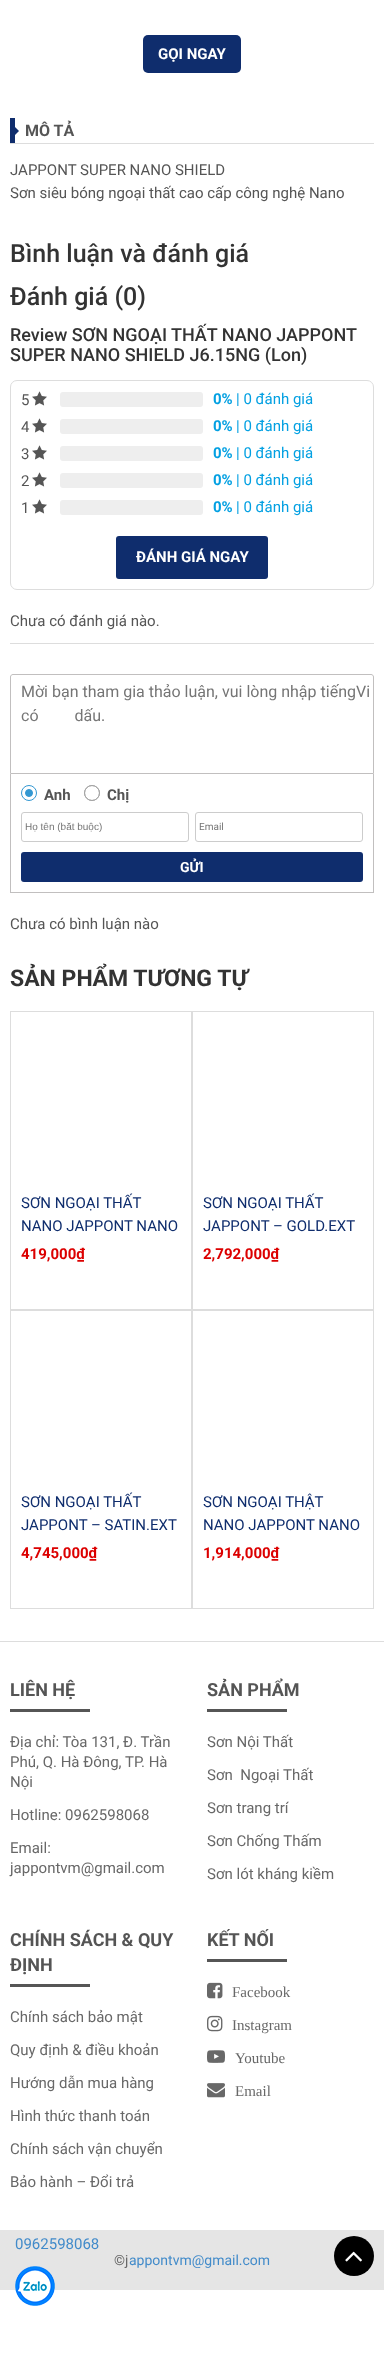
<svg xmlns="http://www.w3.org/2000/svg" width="384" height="2356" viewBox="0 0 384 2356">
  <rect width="100%" height="100%" fill="#ffffff"/>
  <rect x="143" y="35" width="98" height="38" rx="5" fill="#0f2d6d"/>
  <text x="158" y="59" font-family="Roboto" font-size="15" font-weight="bold" fill="#ffffff">GỌI NGAY</text>
  <rect x="10" y="143" width="364" height="1" fill="#dddddd"/>
  <rect x="10" y="118" width="5" height="25" fill="#0f2d6d"/>
  <path d="M14 136V126L19 131Z" fill="#0f2d6d"/>
  <text x="25" y="136" font-family="Roboto" font-size="16" font-weight="bold" fill="#555555">MÔ TẢ</text>
  <text x="10" y="175" font-family="Roboto" font-size="15" fill="#555555">JAPPONT SUPER NANO SHIELD</text>
  <text x="10" y="198" font-family="Roboto" font-size="15" fill="#555555">Sơn siêu bóng ngoại thất cao cấp công nghệ Nano</text>
  <text x="10" y="262" font-family="Roboto" font-size="25" font-weight="500" fill="#333333">Bình luận và đánh giá</text>
  <text x="10" y="305" font-family="Roboto" font-size="25" font-weight="500" fill="#333333">Đánh giá (0)</text>
  <rect x="10" y="643" width="364" height="1" fill="#dddddd"/>
  <text x="10" y="341" font-family="Roboto" font-size="18" font-weight="500" fill="#333333">Review SƠN NGOẠI THẤT NANO JAPPONT</text>
  <text x="10" y="361" font-family="Roboto" font-size="18" font-weight="500" fill="#333333">SUPER NANO SHIELD J6.15NG (Lon)</text>
  <rect x="10.5" y="380.5" width="363" height="209" rx="6.5" fill="none" stroke="#dddddd"/>
  <text x="21" y="405" font-family="Roboto" font-size="15" fill="#555555">5</text>
  <image x="32" y="391" width="15" height="15" href="img1.png"/>
  <rect x="60" y="392" width="143" height="15" rx="3" fill="#eeeeee"/>
  <text x="213" y="404" font-family="Roboto" font-size="15" font-weight="bold" fill="#03a0e2">0%</text>
  <text x="236" y="404" font-family="Roboto" font-size="15" fill="#03a0e2">| 0 đánh giá</text>
  <text x="21" y="432" font-family="Roboto" font-size="15" fill="#555555">4</text>
  <image x="32" y="418" width="15" height="15" href="img1.png"/>
  <rect x="60" y="419" width="143" height="15" rx="3" fill="#eeeeee"/>
  <text x="213" y="431" font-family="Roboto" font-size="15" font-weight="bold" fill="#03a0e2">0%</text>
  <text x="236" y="431" font-family="Roboto" font-size="15" fill="#03a0e2">| 0 đánh giá</text>
  <text x="21" y="459" font-family="Roboto" font-size="15" fill="#555555">3</text>
  <image x="32" y="445" width="15" height="15" href="img1.png"/>
  <rect x="60" y="446" width="143" height="15" rx="3" fill="#eeeeee"/>
  <text x="213" y="458" font-family="Roboto" font-size="15" font-weight="bold" fill="#03a0e2">0%</text>
  <text x="236" y="458" font-family="Roboto" font-size="15" fill="#03a0e2">| 0 đánh giá</text>
  <text x="21" y="486" font-family="Roboto" font-size="15" fill="#555555">2</text>
  <image x="32" y="472" width="15" height="15" href="img1.png"/>
  <rect x="60" y="473" width="143" height="15" rx="3" fill="#eeeeee"/>
  <text x="213" y="485" font-family="Roboto" font-size="15" font-weight="bold" fill="#03a0e2">0%</text>
  <text x="236" y="485" font-family="Roboto" font-size="15" fill="#03a0e2">| 0 đánh giá</text>
  <text x="21" y="513" font-family="Roboto" font-size="15" fill="#555555">1</text>
  <image x="32" y="499" width="15" height="15" href="img1.png"/>
  <rect x="60" y="500" width="143" height="15" rx="3" fill="#eeeeee"/>
  <text x="213" y="512" font-family="Roboto" font-size="15" font-weight="bold" fill="#03a0e2">0%</text>
  <text x="236" y="512" font-family="Roboto" font-size="15" fill="#03a0e2">| 0 đánh giá</text>
  <rect x="116" y="536" width="152" height="43" rx="3" fill="#0f2d6d"/>
  <text x="136" y="562" font-family="Roboto" font-size="15" font-weight="bold" fill="#ffffff">ĐÁNH GIÁ NGAY</text>
  <text x="10" y="626" font-family="Roboto" font-size="15" fill="#555555">Chưa có đánh giá nào.</text>
  <path d="M13 674.5H371C372.5 674.5 373.5 675.5 373.5 677V773.5H10.5V677C10.5 675.5 11.5 674.5 13 674.5Z" fill="none" stroke="#c1bfbf"/>
  <text x="21" y="697" font-family="Roboto" font-size="16" fill="#757575">Mời bạn tham gia thảo luận, vui lòng nhập tiếngVi</text>
  <text x="21" y="721" word-spacing="32" font-family="Roboto" font-size="16" fill="#757575">có dấu.</text>
  <rect x="373" y="774" width="1" height="119" fill="#c1bfbf"/>
  <rect x="10" y="892" width="364" height="1" fill="#c1bfbf"/>
  <rect x="10" y="774" width="1" height="119" fill="#c1bfbf"/>
  <circle cx="29" cy="793" r="7.5" fill="none" stroke="#3398d2"/>
  <text x="44" y="800" font-family="Roboto" font-size="15" font-weight="bold" fill="#555555">Anh</text>
  <circle cx="29" cy="793" r="3.5" fill="#3398d2" stroke="#3398d2"/>
  <circle cx="92" cy="793" r="7.5" fill="none" stroke="#a6a6a6"/>
  <circle cx="92" cy="793" r="7.5" fill="none" stroke="#a6a6a6"/>
  <text x="107" y="800" font-family="Roboto" font-size="15" font-weight="bold" fill="#555555">Chị</text>
  <rect x="21.5" y="812.5" width="167" height="29" rx="2.5" fill="none" stroke="#cccccc"/>
  <text x="25" y="830" font-family="Liberation Sans" font-size="10" fill="#757575">Họ tên (bắt buộc)</text>
  <rect x="195.5" y="812.5" width="167" height="29" rx="2.5" fill="none" stroke="#cccccc"/>
  <text x="199" y="830" font-family="Roboto" font-size="10" fill="#757575">Email</text>
  <rect x="21" y="852" width="342" height="30" rx="3" fill="#0f2d6d"/>
  <text x="180" y="872" font-family="Roboto" font-size="14" font-weight="bold" fill="#ffffff">GỬI</text>
  <text x="10" y="929" font-family="Roboto" font-size="15" fill="#555555">Chưa có bình luận nào</text>
  <text x="10" y="986" font-family="Roboto" font-size="23" font-weight="bold" fill="#333333">SẢN PHẨM TƯƠNG TỰ</text>
  <rect x="10.5" y="1011.5" width="181" height="298" fill="none" stroke="#dddddd"/>
  <text x="21" y="1208" font-family="Roboto" font-size="15" fill="#0f2d6d">SƠN NGOẠI THẤT</text>
  <text x="21" y="1231" font-family="Roboto" font-size="15" fill="#0f2d6d">NANO JAPPONT NANO</text>
  <text x="21" y="1259" font-family="Roboto" font-size="15" font-weight="bold" fill="#dc0000">419,000₫</text>
  <rect x="192.5" y="1011.5" width="181" height="298" fill="none" stroke="#dddddd"/>
  <text x="203" y="1208" font-family="Roboto" font-size="15" fill="#0f2d6d">SƠN NGOẠI THẤT</text>
  <text x="203" y="1231" font-family="Roboto" font-size="15" fill="#0f2d6d">JAPPONT – GOLD.EXT</text>
  <text x="203" y="1259" font-family="Roboto" font-size="15" font-weight="bold" fill="#dc0000">2,792,000₫</text>
  <rect x="10.5" y="1310.5" width="181" height="298" fill="none" stroke="#dddddd"/>
  <text x="21" y="1507" font-family="Roboto" font-size="15" fill="#0f2d6d">SƠN NGOẠI THẤT</text>
  <text x="21" y="1530" font-family="Roboto" font-size="15" fill="#0f2d6d">JAPPONT – SATIN.EXT</text>
  <text x="21" y="1558" font-family="Roboto" font-size="15" font-weight="bold" fill="#dc0000">4,745,000₫</text>
  <rect x="192.5" y="1310.5" width="181" height="298" fill="none" stroke="#dddddd"/>
  <text x="203" y="1507" font-family="Roboto" font-size="15" fill="#0f2d6d">SƠN NGOẠI THẬT</text>
  <text x="203" y="1530" font-family="Roboto" font-size="15" fill="#0f2d6d">NANO JAPPONT NANO</text>
  <text x="203" y="1558" font-family="Roboto" font-size="15" font-weight="bold" fill="#dc0000">1,914,000₫</text>
  <rect x="0" y="1641" width="384" height="1" fill="#dddddd"/>
  <text x="10" y="1696" font-family="Roboto" font-size="18" font-weight="bold" fill="#555555">LIÊN HỆ</text>
  <rect x="10" y="1709" width="80" height="3" fill="#565656"/>
  <text x="10" y="1747" font-family="Roboto" font-size="15" fill="#686868">Địa chỉ: Tòa 131, Đ. Trần</text>
  <text x="10" y="1767" font-family="Roboto" font-size="15" fill="#686868">Phú, Q. Hà Đông, TP. Hà</text>
  <text x="10" y="1787" font-family="Roboto" font-size="15" fill="#686868">Nội</text>
  <text x="10" y="1820" font-family="Roboto" font-size="15" fill="#686868">Hotline: 0962598068</text>
  <text x="10" y="1853" font-family="Roboto" font-size="15" fill="#686868">Email:</text>
  <text x="10" y="1873" font-family="Roboto" font-size="15" fill="#686868">jappontvm@gmail.com</text>
  <text x="207" y="1696" font-family="Roboto" font-size="18" font-weight="bold" fill="#555555">SẢN PHẨM</text>
  <rect x="207" y="1709" width="80" height="3" fill="#565656"/>
  <text x="207" y="1747" font-family="Roboto" font-size="15" fill="#686868">Sơn Nội Thất</text>
  <text x="207" y="1780" font-family="Roboto" font-size="15" fill="#686868" xml:space="preserve">Sơn  Ngoại Thất</text>
  <text x="207" y="1813" font-family="Roboto" font-size="15" fill="#686868">Sơn trang trí</text>
  <text x="207" y="1846" font-family="Roboto" font-size="15" fill="#686868">Sơn Chống Thấm</text>
  <text x="207" y="1879" font-family="Roboto" font-size="15" fill="#686868">Sơn lót kháng kiềm</text>
  <text x="10" y="1946" font-family="Roboto" font-size="18" font-weight="bold" fill="#555555">CHÍNH SÁCH &amp; QUY</text>
  <text x="10" y="1971" font-family="Roboto" font-size="18" font-weight="bold" fill="#555555">ĐỊNH</text>
  <rect x="10" y="1984" width="80" height="3" fill="#565656"/>
  <text x="10" y="2022" font-family="Roboto" font-size="15" fill="#686868">Chính sách bảo mật</text>
  <text x="10" y="2055" font-family="Roboto" font-size="15" fill="#686868">Quy định &amp; điều khoản</text>
  <text x="10" y="2088" font-family="Roboto" font-size="15" fill="#686868">Hướng dẫn mua hàng</text>
  <text x="10" y="2121" font-family="Roboto" font-size="15" fill="#686868">Hình thức thanh toán</text>
  <text x="10" y="2154" font-family="Roboto" font-size="15" fill="#686868">Chính sách vận chuyển</text>
  <text x="10" y="2187" font-family="Roboto" font-size="15" fill="#686868">Bảo hành – Đổi trả</text>
  <text x="207" y="1946" font-family="Roboto" font-size="18" font-weight="bold" fill="#555555">KẾT NỐI</text>
  <rect x="207" y="1959" width="80" height="3" fill="#565656"/>
  <image x="207" y="1982" width="16" height="17" href="img2.png"/>
  <text x="232" y="1997" font-family="Liberation Serif" font-size="15" fill="#686868">Facebook</text>
  <image x="207" y="2015" width="16" height="17" href="img3.png"/>
  <text x="232" y="2030" font-family="Liberation Serif" font-size="15" fill="#686868">Instagram</text>
  <image x="207" y="2050" width="18" height="13" href="img4.png"/>
  <text x="235" y="2063" font-family="Liberation Serif" font-size="15" fill="#686868">Youtube</text>
  <image x="207" y="2083" width="18" height="15" href="img5.png"/>
  <text x="235" y="2096" font-family="Liberation Serif" font-size="15" fill="#686868">Email</text>
  <rect x="0" y="2230" width="384" height="60" fill="#e5e5e5"/>
  <text x="15" y="2249" font-family="Roboto" font-size="15" fill="#428bca">0962598068</text>
  <image x="15" y="2266" width="40" height="40" href="img6.png"/>
  <circle cx="354" cy="2256" r="20" fill="#000000"/>
  <image x="345" y="2251" width="17" height="11" href="img7.png"/>
  <text x="114" y="2265" font-family="Roboto" font-size="14" fill="#686868">©j</text>
  <text x="129" y="2265" font-family="Roboto" font-size="14" fill="#428bca">appontvm@gmail.com</text>
</svg>
